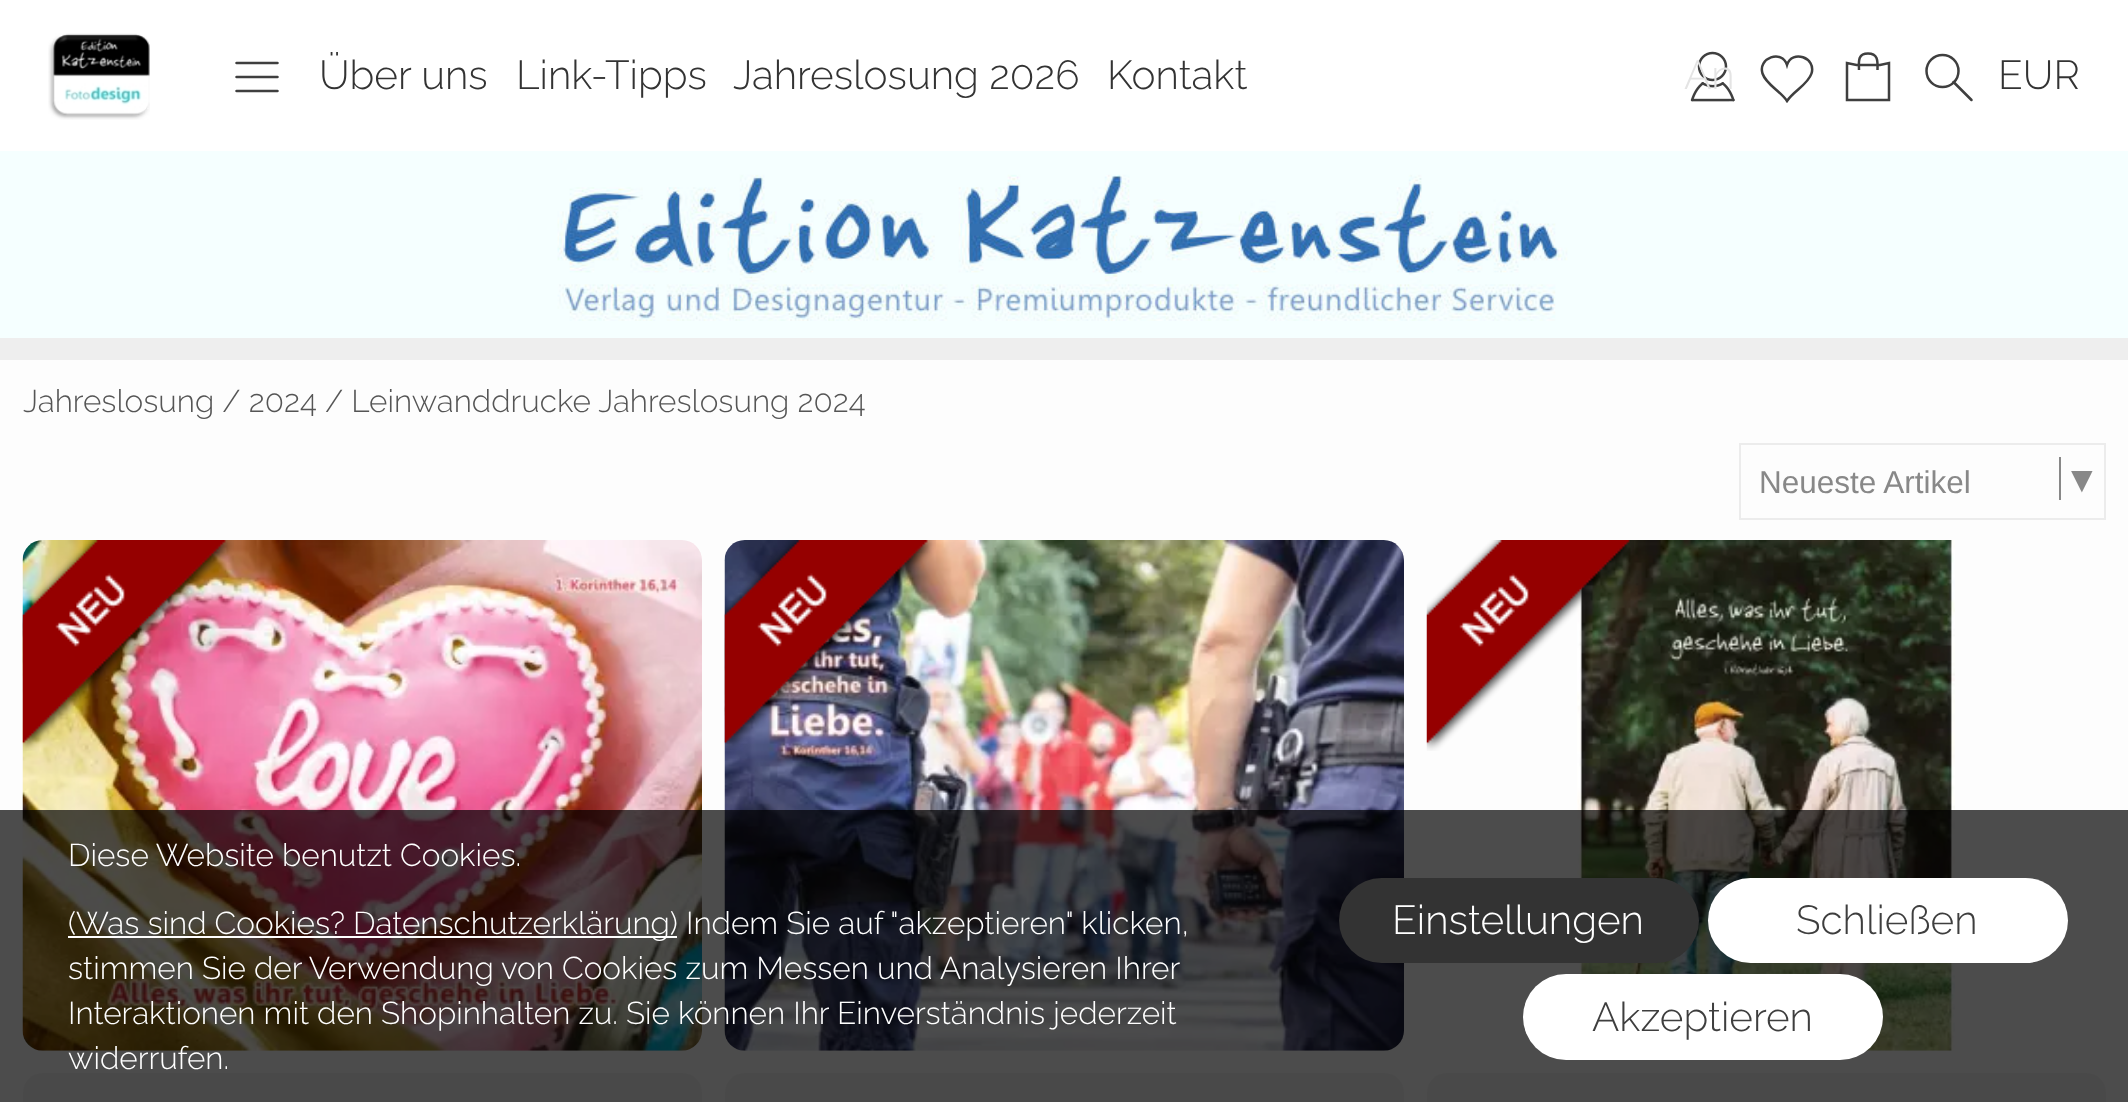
<svg xmlns="http://www.w3.org/2000/svg" width="2128" height="1102" viewBox="0 0 2128 1102">
  <rect width="100%" height="100%" fill="#eeeeee"/>
  <rect x="0" y="0" width="2128" height="151" fill="#ffffff"/>
  <image x="48" y="33" width="102" height="87" href="img1.png"/>
  <path d="M236.5 91H277.5M236.5 77H277.5M236.5 63H277.5" fill="none" stroke="#3f3f3f" stroke-width="2.5" stroke-linecap="round"/>
  <text x="319" y="89" font-family="Raleway" font-size="40.5" font-weight="300" fill="#333333">Über uns</text>
  <text x="516" y="89" font-family="Raleway" font-size="40.5" font-weight="300" fill="#333333">Link-Tipps</text>
  <text x="733" y="89" font-family="Raleway" font-size="40.5" font-weight="300" fill="#333333">Jahreslosung 2026</text>
  <text x="1107" y="89" font-family="Raleway" font-size="40.5" font-weight="300" fill="#333333">Kontakt</text>
  <image x="1690" y="51" width="45" height="51" href="img2.png"/>
  <text x="1684" y="89" font-family="Raleway" font-size="40.5" font-weight="300" fill="#e4e4e4">An</text>
  <path d="M1787 101C1780.5 91 1766 84.5 1762.5 73.5C1757.5 58 1782 49 1787 65C1792 49 1816.5 57.5 1811.5 73.5C1808 84.5 1793.5 91 1787 101Z" fill="none" stroke="#3f3f3f" stroke-width="2.5"/>
  <path d="M1847 77V100H1889V77M1859 70C1859 62.5 1857 53.5 1868 53.5C1879 53.5 1877.5 62.5 1877.5 70M1889 84V63L1880 65H1856.5L1847 63V84" fill="none" stroke="#3f3f3f" stroke-width="2.5"/>
  <circle cx="1942.5" cy="71" r="16" fill="none" stroke="#3f3f3f" stroke-width="2.5"/>
  <path d="M1953.5 82L1971.5 100" fill="none" stroke="#3f3f3f" stroke-width="2.5" stroke-linecap="round"/>
  <text x="1998" y="89" font-family="Raleway" font-size="40.5" font-weight="300" fill="#333333">EUR</text>
  <rect x="0" y="151" width="2128" height="187" fill="#f5ffff"/>
  <image x="534" y="151" width="1063" height="170" href="img3.png"/>
  <rect x="0" y="360" width="2128" height="742" fill="#fdfdfd"/>
  <text x="23" y="412" font-family="Raleway" font-size="31.5" font-weight="300" fill="#555555">Jahreslosung / 2024 / Leinwanddrucke Jahreslosung 2024</text>
  <rect x="1740" y="444" width="365" height="75" fill="none" stroke="#ececec" stroke-width="2"/>
  <text x="1759" y="493" font-family="Liberation Sans" font-size="31.5" fill="#888888">Neueste Artikel</text>
  <rect x="2059" y="457" width="2" height="43" fill="#888888"/>
  <text x="2071" y="491" font-family="DejaVu Sans Mono" font-size="36" fill="#888888">▼</text>
  <image x="22" y="540" width="680" height="511" href="img4.png"/>
  <image x="22" y="540" width="212" height="211" href="img5.png"/>
  <rect x="23" y="1073" width="679" height="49" rx="20" fill="#f6f6f6"/>
  <image x="724" y="540" width="680" height="511" href="img6.png"/>
  <image x="724" y="540" width="212" height="210" href="img7.png"/>
  <rect x="725" y="1073" width="679" height="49" rx="20" fill="#f6f6f6"/>
  <image x="1577" y="540" width="378" height="511" href="img9.png"/>
  <image x="1426" y="540" width="208" height="211" href="img8.png"/>
  <rect x="1427" y="1073" width="679" height="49" rx="20" fill="#f6f6f6"/>
  <rect x="0" y="810" width="2128" height="292" fill="#000000" fill-opacity="0.7"/>
  <text x="68" y="866" font-family="Raleway" font-size="31.5" font-weight="300" fill="#ffffff">Diese Website benutzt Cookies.</text>
  <rect x="68" y="936" width="609" height="2" fill="#ffffff"/>
  <text x="68" y="934" font-family="Raleway" font-size="31.5" font-weight="300" fill="#ffffff">(Was sind Cookies? Datenschutzerklärung) Indem Sie auf "akzeptieren" klicken,</text>
  <text x="68" y="979" font-family="Raleway" font-size="31.5" font-weight="300" fill="#ffffff">stimmen Sie der Verwendung von Cookies zum Messen und Analysieren Ihrer</text>
  <text x="68" y="1024" font-family="Raleway" font-size="31.5" font-weight="300" fill="#ffffff">Interaktionen mit den Shopinhalten zu. Sie können Ihr Einverständnis jederzeit</text>
  <text x="68" y="1069" font-family="Raleway" font-size="31.5" font-weight="300" fill="#ffffff">widerrufen.</text>
  <rect x="1339" y="878" width="360" height="85" rx="42.5" fill="#333333"/>
  <text x="1392" y="934" font-family="Raleway" font-size="40.5" font-weight="300" fill="#ffffff">Einstellungen</text>
  <rect x="1708" y="878" width="360" height="85" rx="42.5" fill="#ffffff"/>
  <text x="1796" y="934" font-family="Raleway" font-size="40.5" font-weight="300" fill="#3e3e3e">Schließen</text>
  <rect x="1523" y="974" width="360" height="86" rx="43" fill="#ffffff"/>
  <text x="1592" y="1031" font-family="Raleway" font-size="40.5" font-weight="300" fill="#3e3e3e">Akzeptieren</text>
</svg>
